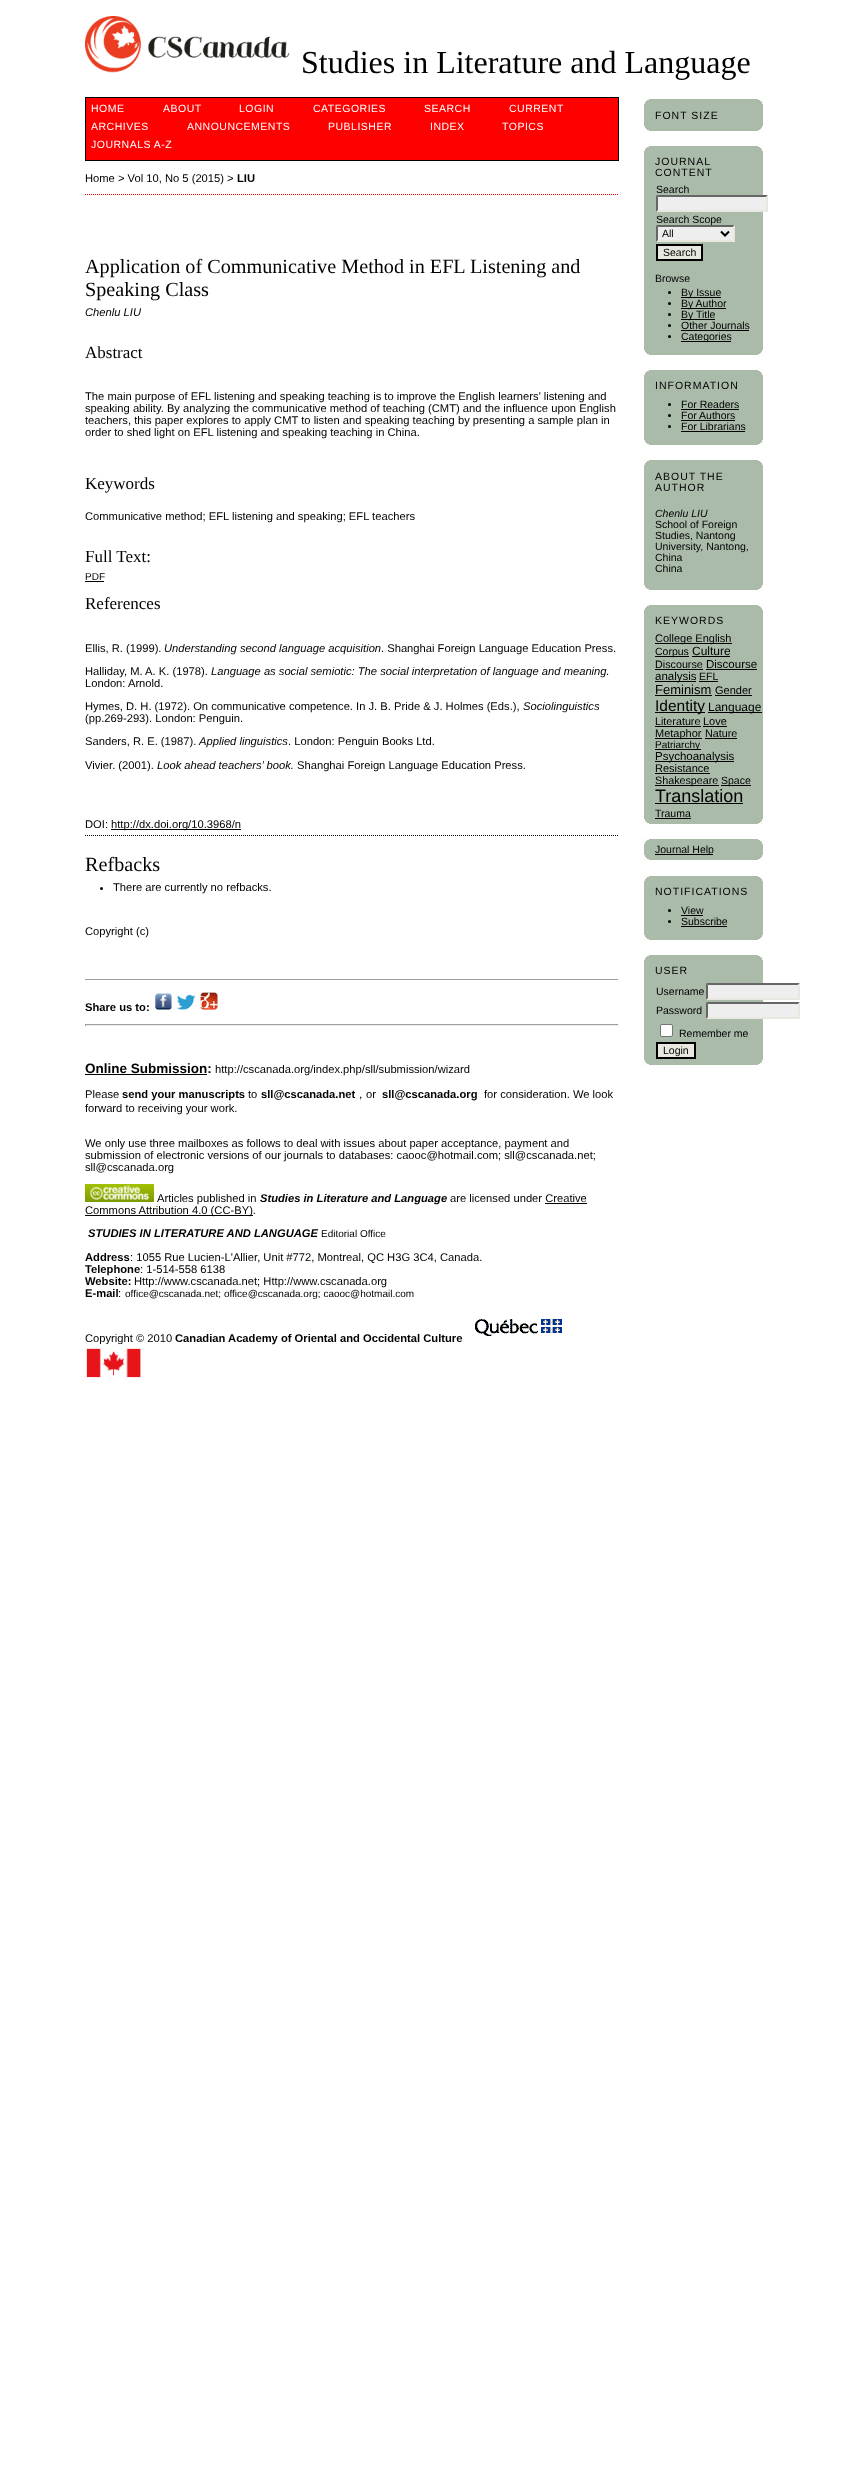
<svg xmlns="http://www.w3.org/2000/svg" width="848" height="2487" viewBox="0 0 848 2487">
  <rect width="100%" height="100%" fill="#ffffff"/>
  <image x="85" y="16" width="205" height="57" href="img1.png"/>
  <text x="301" y="73" font-family="Liberation Serif" font-size="32" fill="#000000">Studies in Literature and Language</text>
  <rect x="85.5" y="97.5" width="533" height="63" fill="#ff0000" stroke="#000000"/>
  <text x="91" y="112" font-family="Liberation Sans" font-size="10.5" letter-spacing="0.5" fill="#ffffff">HOME</text>
  <text x="163" y="112" font-family="Liberation Sans" font-size="10.5" letter-spacing="0.5" fill="#ffffff">ABOUT</text>
  <text x="239" y="112" font-family="Liberation Sans" font-size="10.5" letter-spacing="0.5" fill="#ffffff">LOGIN</text>
  <text x="313" y="112" font-family="Liberation Sans" font-size="10.5" letter-spacing="0.5" fill="#ffffff">CATEGORIES</text>
  <text x="424" y="112" font-family="Liberation Sans" font-size="10.5" letter-spacing="0.5" fill="#ffffff">SEARCH</text>
  <text x="509" y="112" font-family="Liberation Sans" font-size="10.5" letter-spacing="0.5" fill="#ffffff">CURRENT</text>
  <text x="91" y="130" font-family="Liberation Sans" font-size="10.5" letter-spacing="0.5" fill="#ffffff">ARCHIVES</text>
  <text x="187" y="130" font-family="Liberation Sans" font-size="10.5" letter-spacing="0.5" fill="#ffffff">ANNOUNCEMENTS</text>
  <text x="328" y="130" font-family="Liberation Sans" font-size="10.5" letter-spacing="0.5" fill="#ffffff">PUBLISHER</text>
  <text x="430" y="130" font-family="Liberation Sans" font-size="10.5" letter-spacing="0.5" fill="#ffffff">INDEX</text>
  <text x="502" y="130" font-family="Liberation Sans" font-size="10.5" letter-spacing="0.5" fill="#ffffff">TOPICS</text>
  <text x="91" y="148" font-family="Liberation Sans" font-size="10.5" letter-spacing="0.5" fill="#ffffff">JOURNALS A-Z</text>
  <path d="M85 194.5H619" fill="none" stroke="#ff0000" stroke-dasharray="1 1"/>
  <text x="85" y="182" font-family="Liberation Sans" font-size="11.2" fill="#000000">Home &gt; Vol 10, No 5 (2015) &gt;</text>
  <text x="237" y="182" font-family="Liberation Sans" font-size="11.2" font-weight="bold" fill="#000000">LIU</text>
  <text x="85" y="273" font-family="Liberation Serif" font-size="20.2" fill="#000000">Application of Communicative Method in EFL Listening and</text>
  <text x="85" y="296" font-family="Liberation Serif" font-size="20.2" fill="#000000">Speaking Class</text>
  <text x="85" y="316" font-family="Liberation Sans" font-size="11.2" font-style="italic" fill="#000000">Chenlu LIU</text>
  <text x="85" y="358" font-family="Liberation Serif" font-size="17" fill="#000000">Abstract</text>
  <text x="85" y="400" font-family="Liberation Sans" font-size="11.2" fill="#000000">The main purpose of EFL listening and speaking teaching is to improve the English learners’ listening and</text>
  <text x="85" y="412" font-family="Liberation Sans" font-size="11.2" fill="#000000">speaking ability. By analyzing the communicative method of teaching (CMT) and the influence upon English</text>
  <text x="85" y="424" font-family="Liberation Sans" font-size="11.2" fill="#000000">teachers, this paper explores to apply CMT to listen and speaking teaching by presenting a sample plan in</text>
  <text x="85" y="436" font-family="Liberation Sans" font-size="11.2" fill="#000000">order to shed light on EFL listening and speaking teaching in China.</text>
  <text x="85" y="489" font-family="Liberation Serif" font-size="17" fill="#000000">Keywords</text>
  <text x="85" y="520" font-family="Liberation Sans" font-size="11.2" fill="#000000">Communicative method; EFL listening and speaking; EFL teachers</text>
  <text x="85" y="562" font-family="Liberation Serif" font-size="17" fill="#000000">Full Text:</text>
  <text x="85" y="580" font-family="Liberation Sans" font-size="10" fill="#000000">PDF</text>
  <rect x="85" y="581" width="19" height="1" fill="#000000"/>
  <text x="85" y="609" font-family="Liberation Serif" font-size="17" fill="#000000">References</text>
  <text x="85" y="652" font-family="Liberation Sans" font-size="11.2" fill="#000000">Ellis, R. (1999).</text>
  <text x="164" y="652" font-family="Liberation Sans" font-size="11.2" font-style="italic" fill="#000000">Understanding second language acquisition</text>
  <text x="381" y="652" font-family="Liberation Sans" font-size="11.2" fill="#000000">. Shanghai Foreign Language Education Press.</text>
  <text x="85" y="675" font-family="Liberation Sans" font-size="11.2" fill="#000000">Halliday, M. A. K. (1978).</text>
  <text x="211" y="675" font-family="Liberation Sans" font-size="11.2" font-style="italic" fill="#000000">Language as social semiotic: The social interpretation of language and meaning</text>
  <text x="606" y="675" font-family="Liberation Sans" font-size="11.2" fill="#000000">.</text>
  <text x="85" y="687" font-family="Liberation Sans" font-size="11.2" fill="#000000">London: Arnold.</text>
  <text x="85" y="710" font-family="Liberation Sans" font-size="11.2" fill="#000000">Hymes, D. H. (1972). On communicative competence. In J. B. Pride &amp; J. Holmes (Eds.),</text>
  <text x="523" y="710" font-family="Liberation Sans" font-size="11.2" font-style="italic" fill="#000000">Sociolinguistics</text>
  <text x="85" y="722" font-family="Liberation Sans" font-size="11.2" fill="#000000">(pp.269-293). London: Penguin.</text>
  <text x="85" y="745" font-family="Liberation Sans" font-size="11.2" fill="#000000">Sanders, R. E. (1987).</text>
  <text x="199" y="745" font-family="Liberation Sans" font-size="11.2" font-style="italic" fill="#000000">Applied linguistics</text>
  <text x="288" y="745" font-family="Liberation Sans" font-size="11.2" fill="#000000">. London: Penguin Books Ltd.</text>
  <text x="85" y="769" font-family="Liberation Sans" font-size="11.2" fill="#000000">Vivier. (2001).</text>
  <text x="157" y="769" font-family="Liberation Sans" font-size="11.2" font-style="italic" fill="#000000">Look ahead teachers’ book.</text>
  <text x="297" y="769" font-family="Liberation Sans" font-size="11.2" fill="#000000">Shanghai Foreign Language Education Press.</text>
  <text x="85" y="828" font-family="Liberation Sans" font-size="11.2" fill="#000000">DOI:</text>
  <rect x="111" y="829" width="130" height="1" fill="#000000"/>
  <text x="111" y="828" font-family="Liberation Sans" font-size="11.2" fill="#000000">http://dx.doi.org/10.3968/n</text>
  <path d="M85 835.5H619" fill="none" stroke="#000000" stroke-dasharray="1 1"/>
  <text x="85" y="871" font-family="Liberation Serif" font-size="20.2" fill="#000000">Refbacks</text>
  <circle cx="101.5" cy="888.5" r="1.5" fill="#000000"/>
  <text x="113" y="891" font-family="Liberation Sans" font-size="11.2" fill="#000000">There are currently no refbacks.</text>
  <text x="85" y="935" font-family="Liberation Sans" font-size="11.2" fill="#000000">Copyright (c)</text>
  <rect x="85" y="979" width="534" height="1" fill="#9f9f9f"/>
  <rect x="618" y="979" width="1" height="1" fill="#eeeeee"/>
  <text x="85" y="1011" font-family="Liberation Sans" font-size="11.2" font-weight="bold" fill="#000000">Share us to:</text>
  <image x="155" y="993" width="17" height="17" href="img2.png"/>
  <image x="177" y="994" width="19" height="16" href="img3.png"/>
  <image x="200" y="992" width="18" height="18" href="img4.png"/>
  <rect x="85" y="1024" width="534" height="1" fill="#9f9f9f"/>
  <rect x="618" y="1024" width="1" height="2" fill="#eeeeee"/>
  <rect x="85" y="1025" width="534" height="1" fill="#eeeeee"/>
  <rect x="85" y="1024" width="1" height="2" fill="#9f9f9f"/>
  <text x="85" y="1073" font-family="Liberation Sans" font-size="13.5" font-weight="bold" fill="#000000">Online Submission:</text>
  <rect x="85" y="1074" width="122" height="1" fill="#000000"/>
  <text x="215" y="1073" font-family="Liberation Sans" font-size="11.2" fill="#000000">http://cscanada.org/index.php/sll/submission/wizard</text>
  <text x="85" y="1098" font-family="Liberation Sans" font-size="11.2" fill="#000000">Please</text>
  <text x="122" y="1098" font-family="Liberation Sans" font-size="11.2" font-weight="bold" fill="#000000">send your manuscripts</text>
  <text x="248" y="1098" font-family="Liberation Sans" font-size="11.2" fill="#000000">to</text>
  <text x="261" y="1098" font-family="Liberation Sans" font-size="11.2" font-weight="bold" fill="#000000">sll@cscanada.net</text>
  <text x="355" y="1098" font-family="WenQuanYi Zen Hei" font-size="11.2" font-weight="500" fill="#000000">，</text>
  <text x="366" y="1098" font-family="Liberation Sans" font-size="11.2" fill="#000000">or</text>
  <text x="382" y="1098" font-family="Liberation Sans" font-size="11.2" font-weight="bold" fill="#000000">sll@cscanada.org</text>
  <text x="484" y="1098" font-family="Liberation Sans" font-size="11.2" fill="#000000">for consideration. We look</text>
  <text x="85" y="1112" font-family="Liberation Sans" font-size="11.2" fill="#000000">forward to receiving your work.</text>
  <text x="85" y="1147" font-family="Liberation Sans" font-size="11.2" fill="#000000">We only use three mailboxes as follows to deal with issues about paper acceptance, payment and</text>
  <text x="85" y="1159" font-family="Liberation Sans" font-size="11.2" fill="#000000">submission of electronic versions of our journals to databases: caooc@hotmail.com; sll@cscanada.net;</text>
  <text x="85" y="1171" font-family="Liberation Sans" font-size="11.2" fill="#000000">sll@cscanada.org</text>
  <image x="85" y="1184" width="69" height="18" href="img5.png"/>
  <text x="157" y="1202" font-family="Liberation Sans" font-size="11.2" fill="#000000">Articles published in</text>
  <text x="260" y="1202" font-family="Liberation Sans" font-size="11.2" font-weight="bold" font-style="italic" fill="#000000">Studies in Literature and Language</text>
  <text x="450" y="1202" font-family="Liberation Sans" font-size="11.2" fill="#000000">are licensed under Creative</text>
  <rect x="85" y="1215" width="168" height="1" fill="#000000"/>
  <text x="85" y="1214" font-family="Liberation Sans" font-size="11.2" fill="#000000">Commons Attribution 4.0 (CC-BY).</text>
  <rect x="545" y="1203" width="42" height="1" fill="#000000"/>
  <text x="88" y="1237" font-family="Liberation Sans" font-size="11.2" font-weight="bold" font-style="italic" fill="#000000">STUDIES IN LITERATURE AND LANGUAGE</text>
  <text x="321" y="1237" font-family="Liberation Sans" font-size="10" fill="#000000">Editorial Office</text>
  <text x="85" y="1261" font-family="Liberation Sans" font-size="11.2" font-weight="bold" fill="#000000">Address</text>
  <text x="130" y="1261" font-family="Liberation Sans" font-size="11.2" fill="#000000">: 1055 Rue Lucien-L'Allier, Unit #772, Montreal, QC H3G 3C4, Canada.</text>
  <text x="85" y="1273" font-family="Liberation Sans" font-size="11.2" font-weight="bold" fill="#000000">Telephone</text>
  <text x="140" y="1273" font-family="Liberation Sans" font-size="11.2" fill="#000000">: 1-514-558 6138</text>
  <text x="85" y="1285" font-family="Liberation Sans" font-size="11.2" font-weight="bold" fill="#000000">Website:</text>
  <text x="134" y="1285" font-family="Liberation Sans" font-size="11.2" fill="#000000">Http://www.cscanada.net; Http://www.cscanada.org</text>
  <text x="85" y="1297" font-family="Liberation Sans" font-size="11.2" font-weight="bold" fill="#000000">E-mail</text>
  <text x="118" y="1297" font-family="Liberation Sans" font-size="11.2" fill="#000000">:</text>
  <text x="125" y="1297" font-family="Liberation Sans" font-size="10" fill="#000000">office@cscanada.net; office@cscanada.org; caooc@hotmail.com</text>
  <image x="475" y="1319" width="87" height="17" href="img6.png"/>
  <text x="85" y="1342" font-family="Liberation Sans" font-size="11.2" fill="#000000">Copyright © 2010</text>
  <text x="175" y="1342" font-family="Liberation Sans" font-size="11.2" font-weight="bold" fill="#000000">Canadian Academy of Oriental and Occidental Culture</text>
  <image x="86" y="1344" width="55" height="34" href="img7.png"/>
  <rect x="644" y="104" width="119" height="22" fill="#aabbaa"/>
  <rect x="644" y="99" width="119" height="5" fill="#fbfbf3"/>
  <rect x="649" y="99" width="109" height="1" fill="#aabbaa"/>
  <rect x="647" y="100" width="113" height="1" fill="#aabbaa"/>
  <rect x="646" y="101" width="115" height="1" fill="#aabbaa"/>
  <rect x="645" y="102" width="117" height="2" fill="#aabbaa"/>
  <text x="655" y="119" font-family="Liberation Sans" font-size="10.5" letter-spacing="1" fill="#000000">FONT SIZE</text>
  <rect x="644" y="126" width="119" height="5" fill="#fbfbf3"/>
  <rect x="645" y="126" width="117" height="2" fill="#aabbaa"/>
  <rect x="646" y="128" width="115" height="1" fill="#aabbaa"/>
  <rect x="647" y="129" width="113" height="1" fill="#aabbaa"/>
  <rect x="649" y="130" width="109" height="1" fill="#aabbaa"/>
  <rect x="644" y="151" width="119" height="199" fill="#aabbaa"/>
  <rect x="644" y="146" width="119" height="5" fill="#fbfbf3"/>
  <rect x="649" y="146" width="109" height="1" fill="#aabbaa"/>
  <rect x="647" y="147" width="113" height="1" fill="#aabbaa"/>
  <rect x="646" y="148" width="115" height="1" fill="#aabbaa"/>
  <rect x="645" y="149" width="117" height="2" fill="#aabbaa"/>
  <text x="655" y="165" font-family="Liberation Sans" font-size="10.5" letter-spacing="1" fill="#000000">JOURNAL</text>
  <text x="655" y="176" font-family="Liberation Sans" font-size="10.5" letter-spacing="1" fill="#000000">CONTENT</text>
  <text x="656" y="193" font-family="Liberation Sans" font-size="10.5" fill="#000000">Search</text>
  <rect x="656" y="195" width="112" height="17" fill="#eeeeee"/>
  <path d="M656 195H768L766 197H658Z" fill="#666666"/>
  <path d="M768 195V212L766 210V197Z" fill="#e8e8e1"/>
  <path d="M768 212H656L658 210H766Z" fill="#e8e8e1"/>
  <path d="M656 212V195L658 197V210Z" fill="#666666"/>
  <text x="656" y="223" font-family="Liberation Sans" font-size="10.5" fill="#000000">Search Scope</text>
  <rect x="656" y="225" width="79" height="17" fill="#eeeeee"/>
  <path d="M656 225H735L733 227H658Z" fill="#666666"/>
  <path d="M735 225V242L733 240V227Z" fill="#e8e8e1"/>
  <path d="M735 242H656L658 240H733Z" fill="#e8e8e1"/>
  <path d="M656 242V225L658 227V240Z" fill="#666666"/>
  <path d="M721 231.5L725 235.5L729 231.5" fill="none" stroke="#000000" stroke-width="2"/>
  <text x="662" y="237" font-family="Liberation Sans" font-size="10.5" fill="#000000">All</text>
  <rect x="657" y="245" width="45" height="15" fill="#e8e8e1" stroke="#000000" stroke-width="2"/>
  <text x="663" y="256" font-family="Liberation Sans" font-size="10.5" fill="#000000">Search</text>
  <text x="655" y="282" font-family="Liberation Sans" font-size="10.5" fill="#000000">Browse</text>
  <circle cx="669.5" cy="292.5" r="1.5" fill="#000000"/>
  <rect x="681" y="297" width="40" height="1" fill="#000000"/>
  <text x="681" y="296" font-family="Liberation Sans" font-size="10.5" fill="#000000">By Issue</text>
  <circle cx="669.5" cy="303.5" r="1.5" fill="#000000"/>
  <rect x="681" y="308" width="45" height="1" fill="#000000"/>
  <text x="681" y="307" font-family="Liberation Sans" font-size="10.5" fill="#000000">By Author</text>
  <circle cx="669.5" cy="314.5" r="1.5" fill="#000000"/>
  <rect x="681" y="319" width="34" height="1" fill="#000000"/>
  <text x="681" y="318" font-family="Liberation Sans" font-size="10.5" fill="#000000">By Title</text>
  <circle cx="669.5" cy="325.5" r="1.5" fill="#000000"/>
  <text x="681" y="329" font-family="Liberation Sans" font-size="10.5" fill="#000000">Other Journals</text>
  <rect x="681" y="330" width="68" height="1" fill="#000000"/>
  <circle cx="669.5" cy="336.5" r="1.5" fill="#000000"/>
  <rect x="681" y="341" width="50" height="1" fill="#000000"/>
  <text x="681" y="340" font-family="Liberation Sans" font-size="10.5" fill="#000000">Categories</text>
  <rect x="644" y="350" width="119" height="5" fill="#fbfbf3"/>
  <rect x="645" y="350" width="117" height="2" fill="#aabbaa"/>
  <rect x="646" y="352" width="115" height="1" fill="#aabbaa"/>
  <rect x="647" y="353" width="113" height="1" fill="#aabbaa"/>
  <rect x="649" y="354" width="109" height="1" fill="#aabbaa"/>
  <rect x="644" y="375" width="119" height="65" fill="#aabbaa"/>
  <rect x="644" y="370" width="119" height="5" fill="#fbfbf3"/>
  <rect x="649" y="370" width="109" height="1" fill="#aabbaa"/>
  <rect x="647" y="371" width="113" height="1" fill="#aabbaa"/>
  <rect x="646" y="372" width="115" height="1" fill="#aabbaa"/>
  <rect x="645" y="373" width="117" height="2" fill="#aabbaa"/>
  <text x="655" y="389" font-family="Liberation Sans" font-size="10.5" letter-spacing="1" fill="#000000">INFORMATION</text>
  <circle cx="669.5" cy="404.5" r="1.5" fill="#000000"/>
  <text x="681" y="408" font-family="Liberation Sans" font-size="10.5" fill="#000000">For Readers</text>
  <rect x="681" y="409" width="58" height="1" fill="#000000"/>
  <circle cx="669.5" cy="415.5" r="1.5" fill="#000000"/>
  <text x="681" y="419" font-family="Liberation Sans" font-size="10.5" fill="#000000">For Authors</text>
  <rect x="681" y="420" width="54" height="1" fill="#000000"/>
  <circle cx="669.5" cy="426.5" r="1.5" fill="#000000"/>
  <text x="681" y="430" font-family="Liberation Sans" font-size="10.5" fill="#000000">For Librarians</text>
  <rect x="681" y="431" width="64" height="1" fill="#000000"/>
  <rect x="644" y="440" width="119" height="5" fill="#fbfbf3"/>
  <rect x="645" y="440" width="117" height="2" fill="#aabbaa"/>
  <rect x="646" y="442" width="115" height="1" fill="#aabbaa"/>
  <rect x="647" y="443" width="113" height="1" fill="#aabbaa"/>
  <rect x="649" y="444" width="109" height="1" fill="#aabbaa"/>
  <rect x="644" y="465" width="119" height="120" fill="#aabbaa"/>
  <rect x="644" y="460" width="119" height="5" fill="#fbfbf3"/>
  <rect x="649" y="460" width="109" height="1" fill="#aabbaa"/>
  <rect x="647" y="461" width="113" height="1" fill="#aabbaa"/>
  <rect x="646" y="462" width="115" height="1" fill="#aabbaa"/>
  <rect x="645" y="463" width="117" height="2" fill="#aabbaa"/>
  <text x="655" y="480" font-family="Liberation Sans" font-size="10.5" letter-spacing="1" fill="#000000">ABOUT THE</text>
  <text x="655" y="491" font-family="Liberation Sans" font-size="10.5" letter-spacing="1" fill="#000000">AUTHOR</text>
  <text x="655" y="517" font-family="Liberation Sans" font-size="10.5" font-style="italic" fill="#000000">Chenlu LIU</text>
  <text x="655" y="528" font-family="Liberation Sans" font-size="10.5" fill="#000000">School of Foreign</text>
  <text x="655" y="539" font-family="Liberation Sans" font-size="10.5" fill="#000000">Studies, Nantong</text>
  <text x="655" y="550" font-family="Liberation Sans" font-size="10.5" fill="#000000">University, Nantong,</text>
  <text x="655" y="561" font-family="Liberation Sans" font-size="10.5" fill="#000000">China</text>
  <text x="655" y="572" font-family="Liberation Sans" font-size="10.5" fill="#000000">China</text>
  <rect x="644" y="585" width="119" height="5" fill="#fbfbf3"/>
  <rect x="645" y="585" width="117" height="2" fill="#aabbaa"/>
  <rect x="646" y="587" width="115" height="1" fill="#aabbaa"/>
  <rect x="647" y="588" width="113" height="1" fill="#aabbaa"/>
  <rect x="649" y="589" width="109" height="1" fill="#aabbaa"/>
  <rect x="644" y="610" width="119" height="209" fill="#aabbaa"/>
  <rect x="644" y="605" width="119" height="5" fill="#fbfbf3"/>
  <rect x="649" y="605" width="109" height="1" fill="#aabbaa"/>
  <rect x="647" y="606" width="113" height="1" fill="#aabbaa"/>
  <rect x="646" y="607" width="115" height="1" fill="#aabbaa"/>
  <rect x="645" y="608" width="117" height="2" fill="#aabbaa"/>
  <text x="655" y="624" font-family="Liberation Sans" font-size="10.5" letter-spacing="1" fill="#000000">KEYWORDS</text>
  <rect x="655" y="643" width="77" height="1" fill="#000000"/>
  <text x="655" y="642" font-family="Liberation Sans" font-size="11" fill="#000000">College English</text>
  <rect x="655" y="656" width="34" height="1" fill="#000000"/>
  <text x="655" y="655" font-family="Liberation Sans" font-size="10.5" fill="#000000">Corpus</text>
  <text x="692" y="655" font-family="Liberation Sans" font-size="12" fill="#000000">Culture</text>
  <rect x="692" y="656" width="38" height="1" fill="#000000"/>
  <text x="655" y="668" font-family="Liberation Sans" font-size="10.75" fill="#000000">Discourse</text>
  <rect x="655" y="669" width="48" height="1" fill="#000000"/>
  <text x="706" y="668" font-family="Liberation Sans" font-size="11.5" fill="#000000">Discourse</text>
  <rect x="706" y="669" width="51" height="1" fill="#000000"/>
  <rect x="655" y="681" width="41" height="1" fill="#000000"/>
  <text x="655" y="680" font-family="Liberation Sans" font-size="11.5" fill="#000000">analysis</text>
  <text x="699" y="680" font-family="Liberation Sans" font-size="10.5" fill="#000000">EFL</text>
  <rect x="699" y="681" width="19" height="1" fill="#000000"/>
  <text x="655" y="694" font-family="Liberation Sans" font-size="13" fill="#000000">Feminism</text>
  <rect x="655" y="695" width="57" height="1" fill="#000000"/>
  <text x="715" y="694" font-family="Liberation Sans" font-size="11" fill="#000000">Gender</text>
  <rect x="715" y="695" width="37" height="1" fill="#000000"/>
  <rect x="655" y="712" width="50" height="1" fill="#000000"/>
  <text x="655" y="711" font-family="Liberation Sans" font-size="15.5" fill="#000000">Identity</text>
  <rect x="708" y="712" width="54" height="1" fill="#000000"/>
  <text x="708" y="711" font-family="Liberation Sans" font-size="12" fill="#000000">Language</text>
  <text x="655" y="725" font-family="Liberation Sans" font-size="10.75" fill="#000000">Literature</text>
  <rect x="655" y="726" width="46" height="1" fill="#000000"/>
  <text x="703" y="725" font-family="Liberation Sans" font-size="11" fill="#000000">Love</text>
  <rect x="703" y="726" width="24" height="1" fill="#000000"/>
  <rect x="655" y="738" width="47" height="1" fill="#000000"/>
  <text x="655" y="737" font-family="Liberation Sans" font-size="11" fill="#000000">Metaphor</text>
  <text x="705" y="737" font-family="Liberation Sans" font-size="10.75" fill="#000000">Nature</text>
  <rect x="705" y="738" width="32" height="1" fill="#000000"/>
  <rect x="655" y="749" width="46" height="1" fill="#000000"/>
  <text x="655" y="748" font-family="Liberation Sans" font-size="10" fill="#000000">Patriarchy</text>
  <rect x="655" y="761" width="79" height="1" fill="#000000"/>
  <text x="655" y="760" font-family="Liberation Sans" font-size="11.5" fill="#000000">Psychoanalysis</text>
  <text x="655" y="772" font-family="Liberation Sans" font-size="11" fill="#000000">Resistance</text>
  <rect x="655" y="773" width="55" height="1" fill="#000000"/>
  <rect x="655" y="785" width="64" height="1" fill="#000000"/>
  <text x="655" y="784" font-family="Liberation Sans" font-size="10.75" fill="#000000">Shakespeare</text>
  <rect x="721" y="785" width="30" height="1" fill="#000000"/>
  <text x="721" y="784" font-family="Liberation Sans" font-size="10.5" fill="#000000">Space</text>
  <text x="655" y="802" font-family="Liberation Sans" font-size="18" fill="#000000">Translation</text>
  <rect x="655" y="803" width="88" height="1" fill="#000000"/>
  <text x="655" y="817" font-family="Liberation Sans" font-size="10.5" fill="#000000">Trauma</text>
  <rect x="655" y="818" width="36" height="1" fill="#000000"/>
  <rect x="644" y="819" width="119" height="5" fill="#fbfbf3"/>
  <rect x="645" y="819" width="117" height="2" fill="#aabbaa"/>
  <rect x="646" y="821" width="115" height="1" fill="#aabbaa"/>
  <rect x="647" y="822" width="113" height="1" fill="#aabbaa"/>
  <rect x="649" y="823" width="109" height="1" fill="#aabbaa"/>
  <rect x="644" y="844" width="119" height="11" fill="#aabbaa"/>
  <rect x="644" y="839" width="119" height="5" fill="#fbfbf3"/>
  <rect x="649" y="839" width="109" height="1" fill="#aabbaa"/>
  <rect x="647" y="840" width="113" height="1" fill="#aabbaa"/>
  <rect x="646" y="841" width="115" height="1" fill="#aabbaa"/>
  <rect x="645" y="842" width="117" height="2" fill="#aabbaa"/>
  <rect x="655" y="854" width="58" height="1" fill="#000000"/>
  <rect x="644" y="855" width="119" height="5" fill="#fbfbf3"/>
  <text x="655" y="853" font-family="Liberation Sans" font-size="10.5" fill="#000000">Journal Help</text>
  <rect x="645" y="855" width="117" height="2" fill="#aabbaa"/>
  <rect x="646" y="857" width="115" height="1" fill="#aabbaa"/>
  <rect x="647" y="858" width="113" height="1" fill="#aabbaa"/>
  <rect x="649" y="859" width="109" height="1" fill="#aabbaa"/>
  <rect x="644" y="881" width="119" height="54" fill="#aabbaa"/>
  <rect x="644" y="876" width="119" height="5" fill="#fbfbf3"/>
  <rect x="649" y="876" width="109" height="1" fill="#aabbaa"/>
  <rect x="647" y="877" width="113" height="1" fill="#aabbaa"/>
  <rect x="646" y="878" width="115" height="1" fill="#aabbaa"/>
  <rect x="645" y="879" width="117" height="2" fill="#aabbaa"/>
  <text x="655" y="895" font-family="Liberation Sans" font-size="10.5" letter-spacing="1" fill="#000000">NOTIFICATIONS</text>
  <circle cx="669.5" cy="910.5" r="1.5" fill="#000000"/>
  <text x="681" y="914" font-family="Liberation Sans" font-size="10.5" fill="#000000">View</text>
  <rect x="681" y="915" width="22" height="1" fill="#000000"/>
  <circle cx="669.5" cy="921.5" r="1.5" fill="#000000"/>
  <text x="681" y="925" font-family="Liberation Sans" font-size="10.5" fill="#000000">Subscribe</text>
  <rect x="681" y="926" width="46" height="1" fill="#000000"/>
  <rect x="644" y="935" width="119" height="5" fill="#fbfbf3"/>
  <rect x="645" y="935" width="117" height="2" fill="#aabbaa"/>
  <rect x="646" y="937" width="115" height="1" fill="#aabbaa"/>
  <rect x="647" y="938" width="113" height="1" fill="#aabbaa"/>
  <rect x="649" y="939" width="109" height="1" fill="#aabbaa"/>
  <rect x="644" y="960" width="119" height="100" fill="#aabbaa"/>
  <rect x="644" y="955" width="119" height="5" fill="#fbfbf3"/>
  <rect x="649" y="955" width="109" height="1" fill="#aabbaa"/>
  <rect x="647" y="956" width="113" height="1" fill="#aabbaa"/>
  <rect x="646" y="957" width="115" height="1" fill="#aabbaa"/>
  <rect x="645" y="958" width="117" height="2" fill="#aabbaa"/>
  <text x="655" y="974" font-family="Liberation Sans" font-size="10.5" letter-spacing="1" fill="#000000">USER</text>
  <text x="656" y="995" font-family="Liberation Sans" font-size="10.5" fill="#000000">Username</text>
  <rect x="706" y="983" width="94" height="17" fill="#eeeeee"/>
  <path d="M706 983H800L798 985H708Z" fill="#666666"/>
  <path d="M800 983V1000L798 998V985Z" fill="#e8e8e1"/>
  <path d="M800 1000H706L708 998H798Z" fill="#e8e8e1"/>
  <path d="M706 1000V983L708 985V998Z" fill="#666666"/>
  <text x="656" y="1014" font-family="Liberation Sans" font-size="10.5" fill="#000000">Password</text>
  <rect x="706" y="1002" width="94" height="17" fill="#eeeeee"/>
  <path d="M706 1002H800L798 1004H708Z" fill="#666666"/>
  <path d="M800 1002V1019L798 1017V1004Z" fill="#e8e8e1"/>
  <path d="M800 1019H706L708 1017H798Z" fill="#e8e8e1"/>
  <path d="M706 1019V1002L708 1004V1017Z" fill="#666666"/>
  <rect x="660.5" y="1024.5" width="12" height="12" rx="1.5" fill="#ffffff" stroke="#767676"/>
  <text x="679" y="1037" font-family="Liberation Sans" font-size="10.5" fill="#000000">Remember me</text>
  <rect x="657" y="1043" width="38" height="15" fill="#e8e8e1" stroke="#000000" stroke-width="2"/>
  <text x="663" y="1054" font-family="Liberation Sans" font-size="10.5" fill="#000000">Login</text>
  <rect x="644" y="1060" width="119" height="5" fill="#fbfbf3"/>
  <rect x="645" y="1060" width="117" height="2" fill="#aabbaa"/>
  <rect x="646" y="1062" width="115" height="1" fill="#aabbaa"/>
  <rect x="647" y="1063" width="113" height="1" fill="#aabbaa"/>
  <rect x="649" y="1064" width="109" height="1" fill="#aabbaa"/>
</svg>
